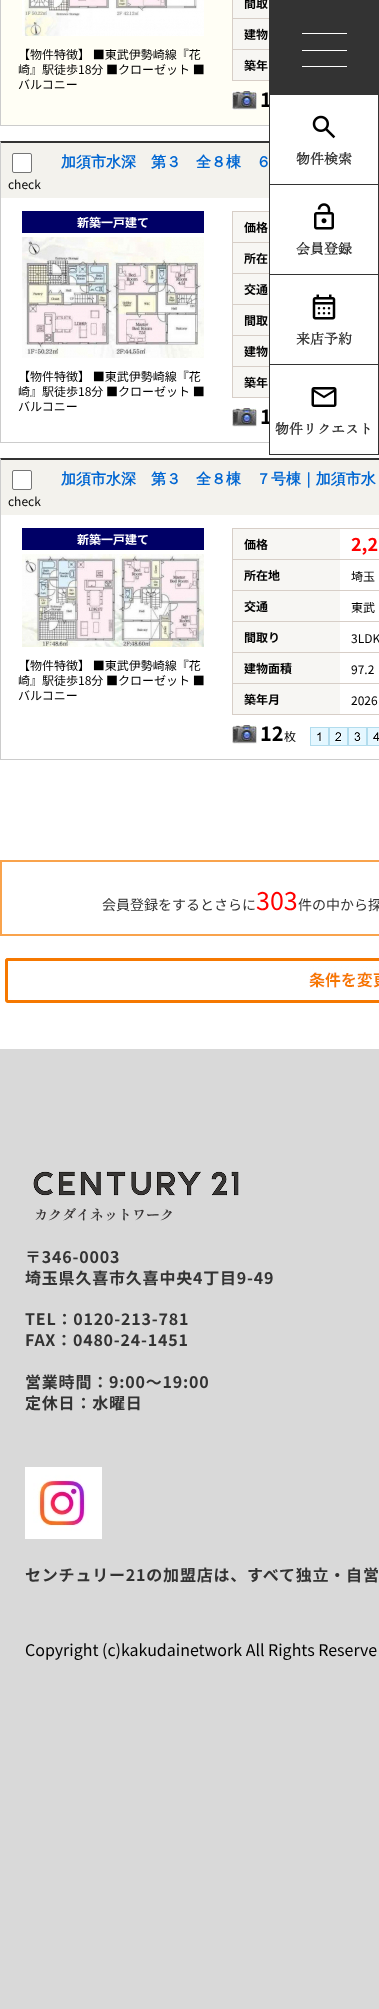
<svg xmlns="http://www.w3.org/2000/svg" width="379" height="2009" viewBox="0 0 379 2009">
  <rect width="100%" height="100%" fill="#ffffff"/>
  <rect x="1" y="0" width="268" height="125" fill="#fffef5"/>
  <rect x="0" y="125" width="269" height="1" fill="#cccccc"/>
  <path d="M0 126V-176L1-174V125Z" fill="#cccccc"/>
  <image x="22" y="0" width="182" height="36" href="img1.png"/>
  <text x="18" y="59" font-family="Noto Sans JP" font-size="12" fill="#000000">【物件特徴】 ■東武伊勢崎線『花</text>
  <text x="18" y="74" font-family="Noto Sans JP" font-size="12" fill="#000000">崎』駅徒歩18分 ■クローゼット ■</text>
  <text x="18" y="89" font-family="Noto Sans JP" font-size="12" fill="#000000">バルコニー</text>
  <rect x="232" y="80" width="37" height="1" fill="#d7cec7"/>
  <rect x="233" y="0" width="36" height="18" fill="#f7f6f3"/>
  <rect x="232" y="0" width="1" height="18" fill="#d7cec7"/>
  <text x="244" y="8" font-family="Noto Sans JP" font-size="12" font-weight="bold" fill="#000000">間取</text>
  <rect x="233" y="19" width="36" height="30" fill="#f7f6f3"/>
  <rect x="232" y="18" width="37" height="1" fill="#d7cec7"/>
  <rect x="232" y="18" width="1" height="31" fill="#d7cec7"/>
  <text x="244" y="39" font-family="Noto Sans JP" font-size="12" font-weight="bold" fill="#000000">建物</text>
  <rect x="233" y="50" width="36" height="30" fill="#f7f6f3"/>
  <rect x="232" y="49" width="37" height="1" fill="#d7cec7"/>
  <rect x="232" y="49" width="1" height="31" fill="#d7cec7"/>
  <text x="244" y="70" font-family="Noto Sans JP" font-size="12" font-weight="bold" fill="#000000">築年</text>
  <image x="232" y="91" width="25" height="19" href="img2.png"/>
  <text x="260" y="107" font-family="Noto Sans JP" font-size="20" font-weight="bold" fill="#000000">1</text>
  <path d="M0 141H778L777 143H1Z" fill="#333333"/>
  <rect x="0" y="442" width="269" height="1" fill="#cccccc"/>
  <path d="M0 443V141L1 143V442Z" fill="#cccccc"/>
  <rect x="1" y="143" width="268" height="55" fill="#f3f2ed"/>
  <text x="61" y="167" font-family="WenQuanYi Zen Hei" font-size="15" font-weight="bold" fill="#0066d2">加須市水深　第３　全８棟　６</text>
  <rect x="12.5" y="153.5" width="19" height="19" rx="1.5" fill="#ffffff" stroke="#767676"/>
  <text x="8" y="189" font-family="Noto Sans JP" font-size="12" fill="#000000">check</text>
  <rect x="22" y="211" width="182" height="22" fill="#000066"/>
  <text x="77" y="227" font-family="Noto Sans JP" font-size="12" font-weight="bold" fill="#ffffff">新築一戸建て</text>
  <image x="22" y="237" width="182" height="121" href="img3.png"/>
  <text x="18" y="381" font-family="Noto Sans JP" font-size="12" fill="#000000">【物件特徴】 ■東武伊勢崎線『花</text>
  <text x="18" y="396" font-family="Noto Sans JP" font-size="12" fill="#000000">崎』駅徒歩18分 ■クローゼット ■</text>
  <text x="18" y="411" font-family="Noto Sans JP" font-size="12" fill="#000000">バルコニー</text>
  <rect x="232" y="397" width="37" height="1" fill="#d7cec7"/>
  <rect x="233" y="212" width="36" height="30" fill="#f7f6f3"/>
  <rect x="232" y="211" width="37" height="1" fill="#d7cec7"/>
  <rect x="232" y="211" width="1" height="31" fill="#d7cec7"/>
  <text x="244" y="232" font-family="Noto Sans JP" font-size="12" font-weight="bold" fill="#000000">価格</text>
  <rect x="233" y="243" width="36" height="30" fill="#f7f6f3"/>
  <rect x="232" y="242" width="37" height="1" fill="#d7cec7"/>
  <rect x="232" y="242" width="1" height="31" fill="#d7cec7"/>
  <text x="244" y="263" font-family="Noto Sans JP" font-size="12" font-weight="bold" fill="#000000">所在</text>
  <rect x="233" y="274" width="36" height="30" fill="#f7f6f3"/>
  <rect x="232" y="273" width="37" height="1" fill="#d7cec7"/>
  <rect x="232" y="273" width="1" height="31" fill="#d7cec7"/>
  <text x="244" y="294" font-family="Noto Sans JP" font-size="12" font-weight="bold" fill="#000000">交通</text>
  <rect x="233" y="305" width="36" height="30" fill="#f7f6f3"/>
  <rect x="232" y="304" width="37" height="1" fill="#d7cec7"/>
  <rect x="232" y="304" width="1" height="31" fill="#d7cec7"/>
  <text x="244" y="325" font-family="Noto Sans JP" font-size="12" font-weight="bold" fill="#000000">間取</text>
  <rect x="233" y="336" width="36" height="30" fill="#f7f6f3"/>
  <rect x="232" y="335" width="37" height="1" fill="#d7cec7"/>
  <rect x="232" y="335" width="1" height="31" fill="#d7cec7"/>
  <text x="244" y="356" font-family="Noto Sans JP" font-size="12" font-weight="bold" fill="#000000">建物</text>
  <rect x="233" y="367" width="36" height="30" fill="#f7f6f3"/>
  <rect x="232" y="366" width="37" height="1" fill="#d7cec7"/>
  <rect x="232" y="366" width="1" height="31" fill="#d7cec7"/>
  <text x="244" y="387" font-family="Noto Sans JP" font-size="12" font-weight="bold" fill="#000000">築年</text>
  <image x="232" y="408" width="25" height="19" href="img2.png"/>
  <text x="260" y="424" font-family="Noto Sans JP" font-size="20" font-weight="bold" fill="#000000">1</text>
  <path d="M0 458H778L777 460H1Z" fill="#333333"/>
  <rect x="0" y="759" width="379" height="1" fill="#cccccc"/>
  <path d="M0 760V458L1 460V759Z" fill="#cccccc"/>
  <rect x="1" y="460" width="378" height="55" fill="#f3f2ed"/>
  <text x="61" y="484" font-family="WenQuanYi Zen Hei" font-size="15" font-weight="bold" fill="#0066d2">加須市水深　第３　全８棟　７号棟｜加須市水</text>
  <rect x="12.5" y="470.5" width="19" height="19" rx="1.5" fill="#ffffff" stroke="#767676"/>
  <text x="8" y="506" font-family="Noto Sans JP" font-size="12" fill="#000000">check</text>
  <rect x="22" y="528" width="182" height="22" fill="#000066"/>
  <text x="77" y="544" font-family="Noto Sans JP" font-size="12" font-weight="bold" fill="#ffffff">新築一戸建て</text>
  <image x="22" y="554" width="182" height="93" href="img4.png"/>
  <text x="18" y="670" font-family="Noto Sans JP" font-size="12" fill="#000000">【物件特徴】 ■東武伊勢崎線『花</text>
  <text x="18" y="685" font-family="Noto Sans JP" font-size="12" fill="#000000">崎』駅徒歩18分 ■クローゼット ■</text>
  <text x="18" y="700" font-family="Noto Sans JP" font-size="12" fill="#000000">バルコニー</text>
  <rect x="232" y="714" width="147" height="1" fill="#d7cec7"/>
  <rect x="233" y="529" width="107" height="30" fill="#f7f6f3"/>
  <rect x="232" y="528" width="147" height="1" fill="#d7cec7"/>
  <rect x="232" y="528" width="1" height="31" fill="#d7cec7"/>
  <text x="244" y="549" font-family="Noto Sans JP" font-size="12" font-weight="bold" fill="#000000">価格</text>
  <text x="351" y="551" font-family="Noto Sans JP" font-size="18" font-weight="bold" fill="#ff0000">2,2</text>
  <rect x="233" y="560" width="107" height="30" fill="#f7f6f3"/>
  <rect x="232" y="559" width="147" height="1" fill="#d7cec7"/>
  <rect x="232" y="559" width="1" height="31" fill="#d7cec7"/>
  <text x="244" y="580" font-family="Noto Sans JP" font-size="12" font-weight="bold" fill="#000000">所在地</text>
  <text x="351" y="581" font-family="Noto Sans JP" font-size="12" fill="#000000">埼玉</text>
  <rect x="233" y="591" width="107" height="30" fill="#f7f6f3"/>
  <rect x="232" y="590" width="147" height="1" fill="#d7cec7"/>
  <rect x="232" y="590" width="1" height="31" fill="#d7cec7"/>
  <text x="244" y="611" font-family="Noto Sans JP" font-size="12" font-weight="bold" fill="#000000">交通</text>
  <text x="351" y="612" font-family="Noto Sans JP" font-size="12" fill="#000000">東武</text>
  <rect x="233" y="622" width="107" height="30" fill="#f7f6f3"/>
  <rect x="232" y="621" width="147" height="1" fill="#d7cec7"/>
  <rect x="232" y="621" width="1" height="31" fill="#d7cec7"/>
  <text x="244" y="642" font-family="Noto Sans JP" font-size="12" font-weight="bold" fill="#000000">間取り</text>
  <text x="351" y="643" font-family="Noto Sans JP" font-size="12" fill="#000000">3LDK</text>
  <rect x="233" y="653" width="107" height="30" fill="#f7f6f3"/>
  <rect x="232" y="652" width="147" height="1" fill="#d7cec7"/>
  <rect x="232" y="652" width="1" height="31" fill="#d7cec7"/>
  <text x="244" y="673" font-family="Noto Sans JP" font-size="12" font-weight="bold" fill="#000000">建物面積</text>
  <text x="351" y="674" font-family="Noto Sans JP" font-size="12" fill="#000000">97.2</text>
  <rect x="233" y="684" width="107" height="30" fill="#f7f6f3"/>
  <rect x="232" y="683" width="147" height="1" fill="#d7cec7"/>
  <rect x="232" y="683" width="1" height="31" fill="#d7cec7"/>
  <text x="244" y="704" font-family="Noto Sans JP" font-size="12" font-weight="bold" fill="#000000">築年月</text>
  <text x="351" y="705" font-family="Noto Sans JP" font-size="12" fill="#000000">2026</text>
  <image x="232" y="725" width="25" height="19" href="img2.png"/>
  <text x="260" y="741" font-family="Noto Sans JP" font-size="20" font-weight="bold" fill="#000000">12</text>
  <text x="284" y="741" font-family="Noto Sans JP" font-size="12" fill="#000000">枚</text>
  <image x="310" y="727" width="19" height="19" href="img5.png"/>
  <image x="329" y="727" width="19" height="19" href="img6.png"/>
  <image x="348" y="727" width="19" height="19" href="img7.png"/>
  <image x="367" y="727" width="12" height="19" href="img8.png"/>
  <rect x="1" y="861" width="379" height="74" fill="none" stroke="#f9a34c" stroke-width="2"/>
  <text x="102" y="910" font-family="Noto Sans JP" font-size="14" fill="#333333">会員登録をするとさらに</text>
  <text x="256" y="910" font-family="Noto Sans JP" font-size="25" fill="#ff0000">303</text>
  <text x="298" y="910" font-family="Noto Sans JP" font-size="14" fill="#333333">件の中から探</text>
  <image x="5" y="958" width="374" height="45" href="img9.png"/>
  <rect x="269" y="0" width="110" height="95" fill="#333333"/>
  <rect x="302" y="33" width="45" height="1" fill="#ffffff"/>
  <rect x="302" y="50" width="45" height="1" fill="#ffffff"/>
  <rect x="302" y="66" width="45" height="1" fill="#ffffff"/>
  <rect x="270" y="104" width="108" height="39" fill="#ffffff"/>
  <rect x="378" y="95" width="1" height="360" fill="#333333"/>
  <rect x="269" y="184" width="110" height="1" fill="#333333"/>
  <rect x="269" y="95" width="1" height="90" fill="#333333"/>
  <image x="312" y="115" width="24" height="24" href="img10.png"/>
  <text x="296" y="164" font-family="Zen Old Mincho" font-size="14" font-weight="bold" fill="#333333">物件検索</text>
  <rect x="269" y="274" width="110" height="1" fill="#333333"/>
  <rect x="269" y="185" width="1" height="90" fill="#333333"/>
  <image x="314" y="203" width="20" height="27" href="img11.png"/>
  <text x="296" y="254" font-family="Zen Old Mincho" font-size="14" font-weight="bold" fill="#333333">会員登録</text>
  <rect x="269" y="364" width="110" height="1" fill="#333333"/>
  <rect x="269" y="275" width="1" height="90" fill="#333333"/>
  <image x="312" y="294" width="24" height="26" href="img12.png"/>
  <text x="296" y="344" font-family="Zen Old Mincho" font-size="14" font-weight="bold" fill="#333333">来店予約</text>
  <rect x="270" y="421" width="1" height="3" fill="#ffffff"/>
  <rect x="269" y="454" width="110" height="1" fill="#333333"/>
  <rect x="269" y="365" width="1" height="90" fill="#333333"/>
  <image x="311" y="387" width="26" height="20" href="img13.png"/>
  <text x="275" y="434" font-family="Zen Old Mincho" font-size="14" font-weight="bold" fill="#333333">物件リクエスト</text>
  <rect x="0" y="1049" width="379" height="960" fill="#d9d9d9"/>
  <image x="33" y="1171" width="206" height="50" href="img14.png"/>
  <text x="25" y="1263" font-family="Noto Sans JP" font-size="16" font-weight="bold" letter-spacing="0.8" fill="#333333">〒346-0003</text>
  <text x="25" y="1284" font-family="Noto Sans JP" font-size="16" font-weight="bold" letter-spacing="0.8" fill="#333333">埼玉県久喜市久喜中央4丁目9-49</text>
  <text x="25" y="1325" font-family="Noto Sans JP" font-size="16" font-weight="bold" letter-spacing="0.8" fill="#333333">TEL：0120-213-781</text>
  <text x="25" y="1346" font-family="Noto Sans JP" font-size="16" font-weight="bold" letter-spacing="0.8" fill="#333333">FAX：0480-24-1451</text>
  <text x="25" y="1388" font-family="Noto Sans JP" font-size="16" font-weight="bold" letter-spacing="0.8" fill="#333333">営業時間：9:00～19:00</text>
  <text x="25" y="1409" font-family="Noto Sans JP" font-size="16" font-weight="bold" letter-spacing="0.8" fill="#333333">定休日：水曜日</text>
  <image x="25" y="1467" width="77" height="72" href="img15.png"/>
  <text x="25" y="1581" font-family="Noto Sans JP" font-size="16" font-weight="bold" letter-spacing="0.8" fill="#333333">センチュリー21の加盟店は、すべて独立・自営</text>
  <text x="25" y="1656" font-family="Noto Sans JP" font-size="16" fill="#000000">Copyright (c)kakudainetwork All Rights Reserve</text>
</svg>
